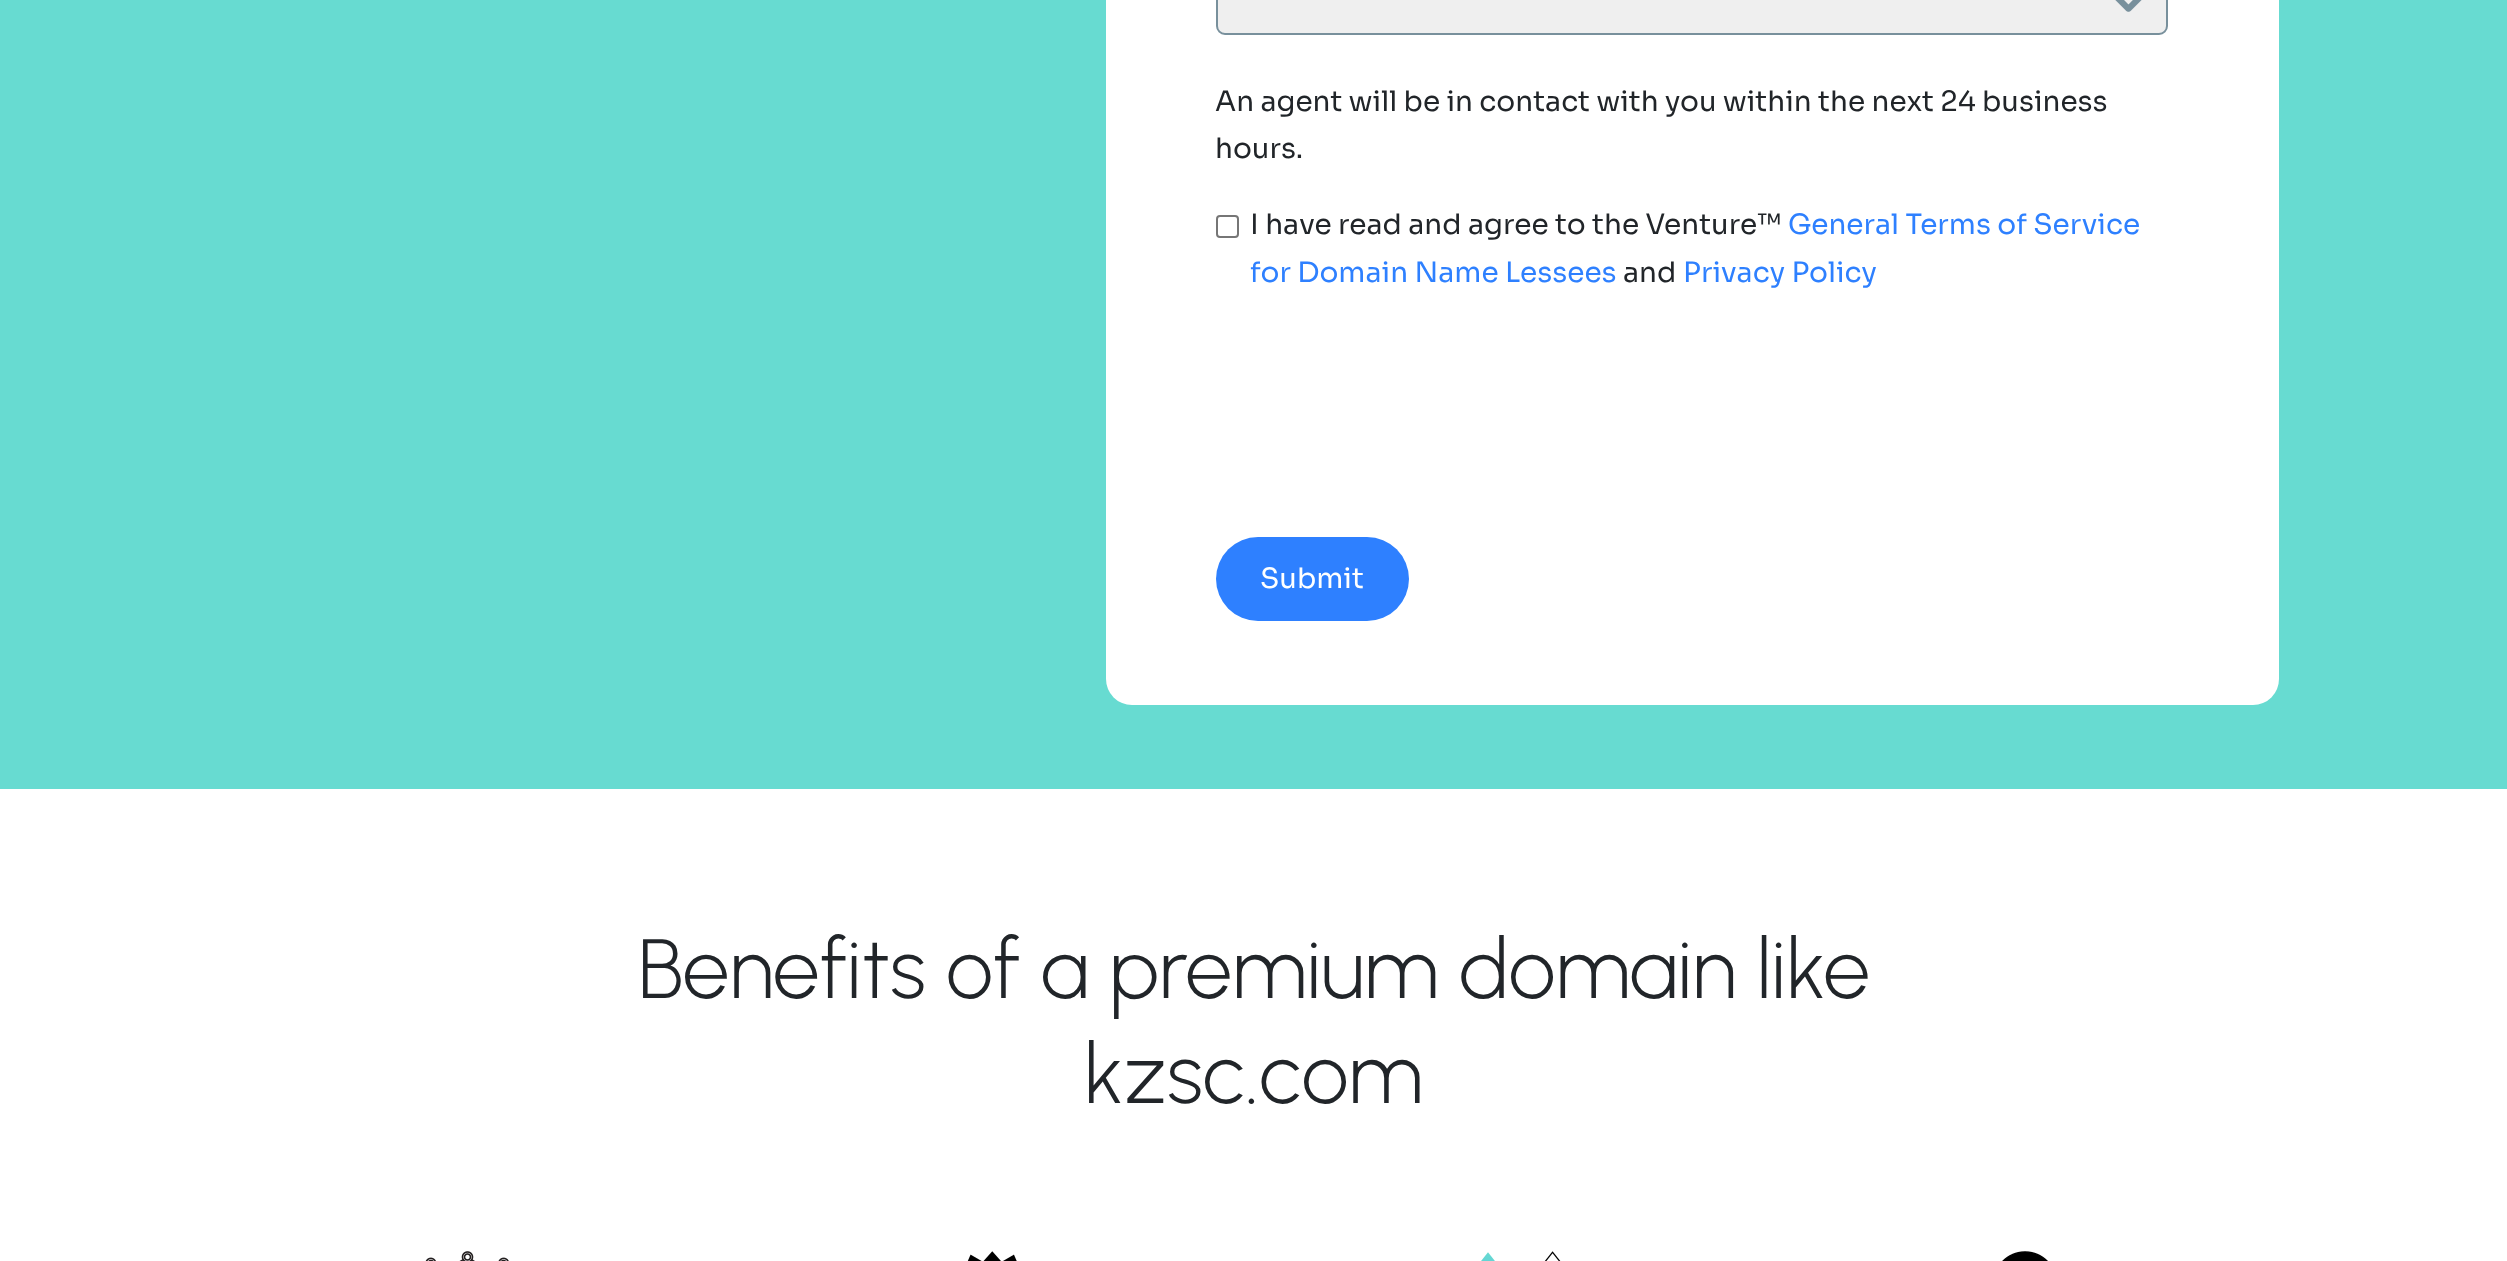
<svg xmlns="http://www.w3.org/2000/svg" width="2507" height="1261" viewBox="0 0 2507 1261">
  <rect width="100%" height="100%" fill="#67dbd1"/>
  <rect x="1106" y="-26" width="1173" height="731" rx="26" fill="#ffffff"/>
  <rect x="1217" y="-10" width="950" height="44" rx="8" fill="#efefef" stroke="#78909c" stroke-width="2"/>
  <image x="2115" y="0" width="27" height="12" href="img1.png"/>
  <text x="1215" y="111" font-family="Sora" font-size="28" fill="#212529">An agent will be in contact with you within the next 24 business</text>
  <text x="1215" y="158" font-family="Sora" font-size="28" fill="#212529">hours.</text>
  <rect x="1217" y="216" width="21" height="21" rx="3" fill="none" stroke="#767676" stroke-width="2"/>
  <text x="1250" y="234" font-family="Sora" font-size="28" fill="#212529">I have read and agree to the Venture™</text>
  <text x="1788" y="234" font-family="Sora" font-size="28" fill="#2e80ff">General Terms of Service</text>
  <text x="1250" y="282" font-family="Sora" font-size="28" fill="#2e80ff">for Domain Name Lessees</text>
  <text x="1623" y="282" font-family="Sora" font-size="28" fill="#212529">and</text>
  <text x="1683" y="282" font-family="Sora" font-size="28" fill="#2e80ff">Privacy Policy</text>
  <rect x="1216" y="537" width="193" height="84" rx="42" fill="#2e80ff"/>
  <text x="1260" y="588" font-family="Sora" font-size="28" fill="#ffffff">Submit</text>
  <rect x="0" y="789" width="2507" height="472" fill="#ffffff"/>
  <text x="638" y="998" font-family="Urbanist" font-size="84" font-weight="300" fill="#212529">Benefits of a premium domain like</text>
  <text x="1084" y="1103" font-family="Urbanist" font-size="84" font-weight="300" fill="#212529">kzsc.com</text>
  <image x="425" y="1251" width="84" height="10" href="img2.png"/>
  <image x="967" y="1251" width="50" height="10" href="img3.png"/>
  <image x="1481" y="1251" width="80" height="10" href="img4.png"/>
  <image x="2002" y="1251" width="46" height="10" href="img5.png"/>
</svg>
